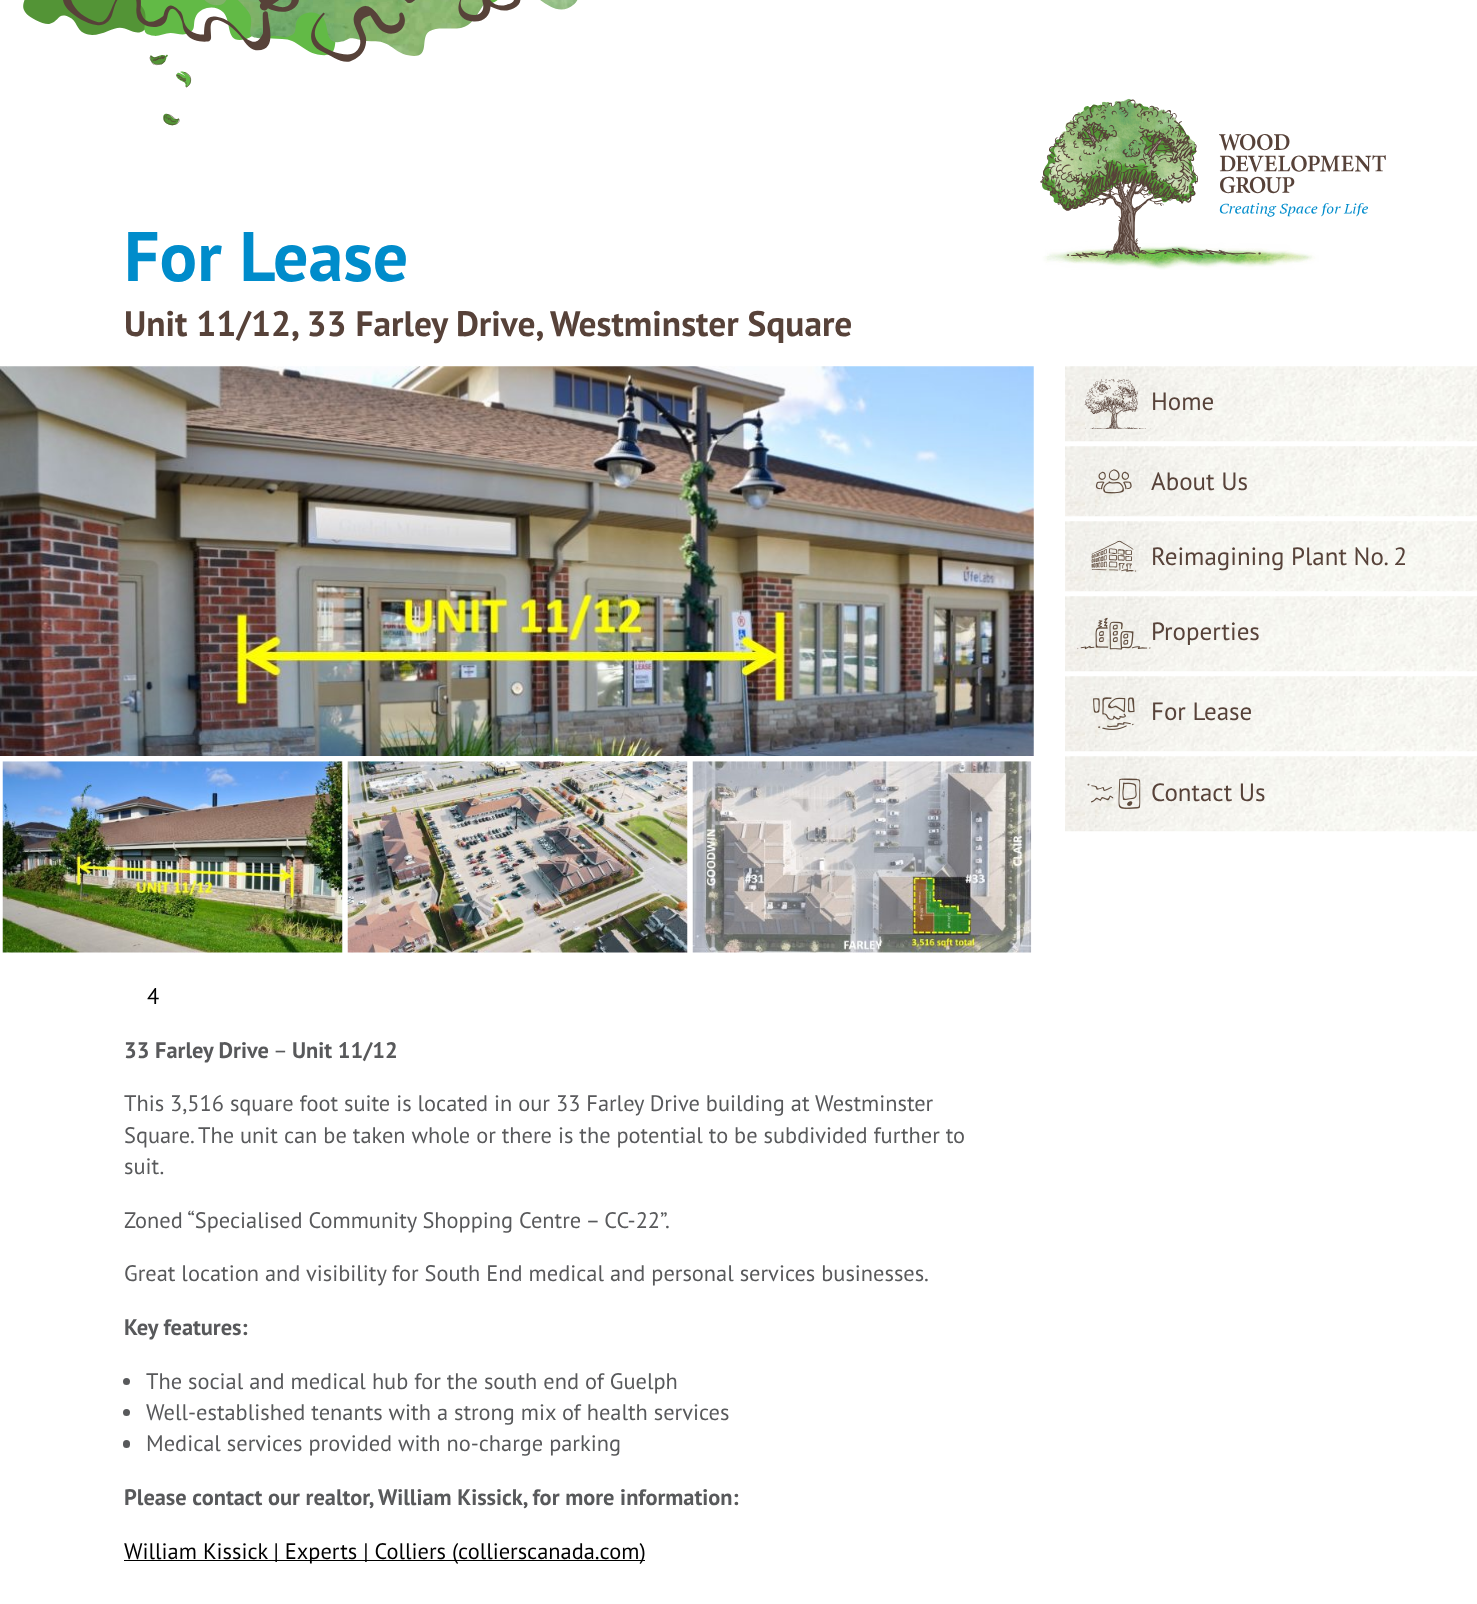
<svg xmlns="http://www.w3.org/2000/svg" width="1477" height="1604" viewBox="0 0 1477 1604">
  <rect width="100%" height="100%" fill="#ffffff"/>
  <image x="23" y="0" width="555" height="126" href="img1.png"/>
  <image x="1040" y="98" width="346" height="172" href="img2.png"/>
  <text x="124" y="281" font-family="PT Sans" font-size="70" font-weight="bold" fill="#008ccb">For Lease</text>
  <text x="124" y="336" font-family="PT Sans" font-size="35.4" font-weight="bold" fill="#574239">Unit 11/12, 33 Farley Drive, Westminster Square</text>
  <image x="0" y="366" width="1034" height="390" href="img3.png"/>
  <image x="2" y="761" width="341" height="192" href="img4.png"/>
  <image x="347" y="761" width="341" height="192" href="img5.png"/>
  <image x="692" y="761" width="340" height="192" href="img6.png"/>
  <text x="147" y="1004" font-family="PT Sans" font-size="22.4" fill="#000000">4</text>
  <text x="124" y="1058" font-family="PT Sans" font-size="22.4" font-weight="bold" fill="#58595b">33 Farley Drive</text>
  <text x="273" y="1058" font-family="PT Sans" font-size="22.4" fill="#58595b">–</text>
  <text x="292" y="1058" font-family="PT Sans" font-size="22.4" font-weight="bold" fill="#58595b">Unit 11/12</text>
  <text x="124" y="1111" font-family="PT Sans" font-size="22.4" fill="#58595b">This 3,516 square foot suite is located in our 33 Farley Drive building at Westminster</text>
  <text x="124" y="1143" font-family="PT Sans" font-size="22.4" fill="#58595b">Square.</text>
  <text x="198" y="1143" font-family="PT Sans" font-size="22.4" fill="#58595b">The unit can be taken whole or there is the potential to be subdivided further to</text>
  <text x="124" y="1174" font-family="PT Sans" font-size="22.4" fill="#58595b">suit.</text>
  <text x="124" y="1228" font-family="PT Sans" font-size="22.4" fill="#58595b">Zoned “Specialised Community Shopping Centre – CC-22”.</text>
  <text x="124" y="1281" font-family="PT Sans" font-size="22.4" fill="#58595b">Great location and visibility for South End medical and personal services businesses.</text>
  <text x="124" y="1335" font-family="PT Sans" font-size="22.4" font-weight="bold" fill="#58595b">Key features:</text>
  <circle cx="126.5" cy="1381.5" r="3.5" fill="#58595b"/>
  <text x="146" y="1389" font-family="PT Sans" font-size="22.4" fill="#58595b">The social and medical hub for the south end of Guelph</text>
  <circle cx="126.5" cy="1412.5" r="3.5" fill="#58595b"/>
  <text x="146" y="1420" font-family="PT Sans" font-size="22.4" fill="#58595b">Well-established tenants with a strong mix of health services</text>
  <rect x="123" y="1440" width="7" height="8" rx="3.5" fill="#58595b"/>
  <text x="146" y="1451" font-family="PT Sans" font-size="22.4" fill="#58595b">Medical services provided with no-charge parking</text>
  <text x="124" y="1505" font-family="PT Sans" font-size="22.4" font-weight="bold" fill="#58595b">Please contact our realtor, William Kissick, for more information:</text>
  <rect x="124" y="1560" width="521" height="1" fill="#000000"/>
  <text x="124" y="1559" font-family="PT Sans" font-size="22.4" fill="#000000">William Kissick | Experts | Colliers (collierscanada.com)</text>
  <image x="1065" y="366" width="412" height="76" href="img7.png"/>
  <image x="1084" y="379" width="67" height="50" href="img8.png"/>
  <text x="1151" y="410" font-family="PT Sans" font-size="25" fill="#574239">Home</text>
  <image x="1065" y="446" width="412" height="71" href="img9.png"/>
  <image x="1095" y="469" width="37" height="25" href="img10.png"/>
  <text x="1151" y="490" font-family="PT Sans" font-size="25" fill="#574239">About Us</text>
  <image x="1065" y="521" width="412" height="71" href="img9.png"/>
  <image x="1091" y="540" width="46" height="32" href="img11.png"/>
  <text x="1151" y="565" font-family="PT Sans" font-size="25" fill="#574239">Reimagining Plant No. 2</text>
  <image x="1065" y="596" width="412" height="76" href="img7.png"/>
  <image x="1077" y="617" width="74" height="33" href="img12.png"/>
  <text x="1151" y="640" font-family="PT Sans" font-size="25" fill="#574239">Properties</text>
  <image x="1065" y="676" width="412" height="76" href="img7.png"/>
  <image x="1093" y="697" width="42" height="33" href="img13.png"/>
  <text x="1151" y="720" font-family="PT Sans" font-size="25" fill="#574239">For Lease</text>
  <image x="1065" y="756" width="412" height="76" href="img7.png"/>
  <image x="1087" y="778" width="54" height="31" href="img14.png"/>
  <text x="1151" y="801" font-family="PT Sans" font-size="25" fill="#574239">Contact Us</text>
</svg>
